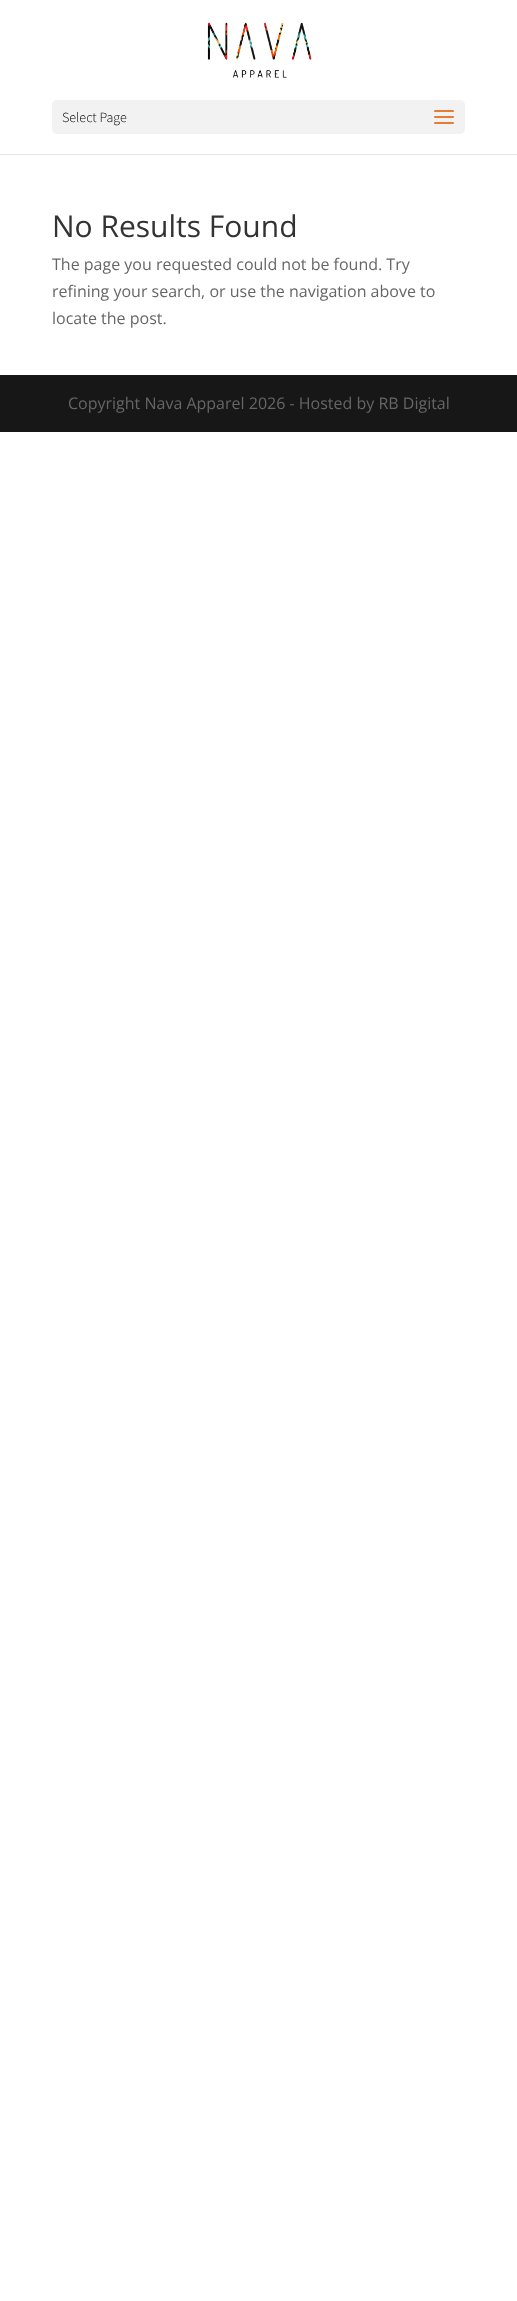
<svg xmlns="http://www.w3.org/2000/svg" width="517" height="2301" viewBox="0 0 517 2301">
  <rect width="100%" height="100%" fill="#ffffff"/>
  <rect x="0" y="154" width="517" height="1" fill="#e6e6e6"/>
  <image x="207" y="22" width="105" height="56" href="img1.png"/>
  <rect x="52" y="100" width="413" height="34" rx="5" fill="#f2f2f2"/>
  <text x="62" y="122" font-family="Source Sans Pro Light" font-size="14" font-weight="300" fill="#000000">Select Page</text>
  <image x="434" y="110" width="20" height="14" href="img2.png"/>
  <text x="52" y="237" font-family="Open Sans" font-size="30" fill="#333333">No Results Found</text>
  <text x="52" y="270" font-family="Open Sans" font-size="16" fill="#666666">The page you requested could not be found. Try</text>
  <text x="52" y="297" font-family="Open Sans" font-size="16" fill="#666666">refining your search, or use the navigation above to</text>
  <text x="52" y="324" font-family="Open Sans" font-size="16" fill="#666666">locate the post.</text>
  <rect x="0" y="375" width="517" height="57" fill="#171717"/>
  <text x="68" y="409" font-family="Open Sans" font-size="16" fill="#666666">Copyright Nava Apparel 2026 - Hosted by RB Digital</text>
</svg>
